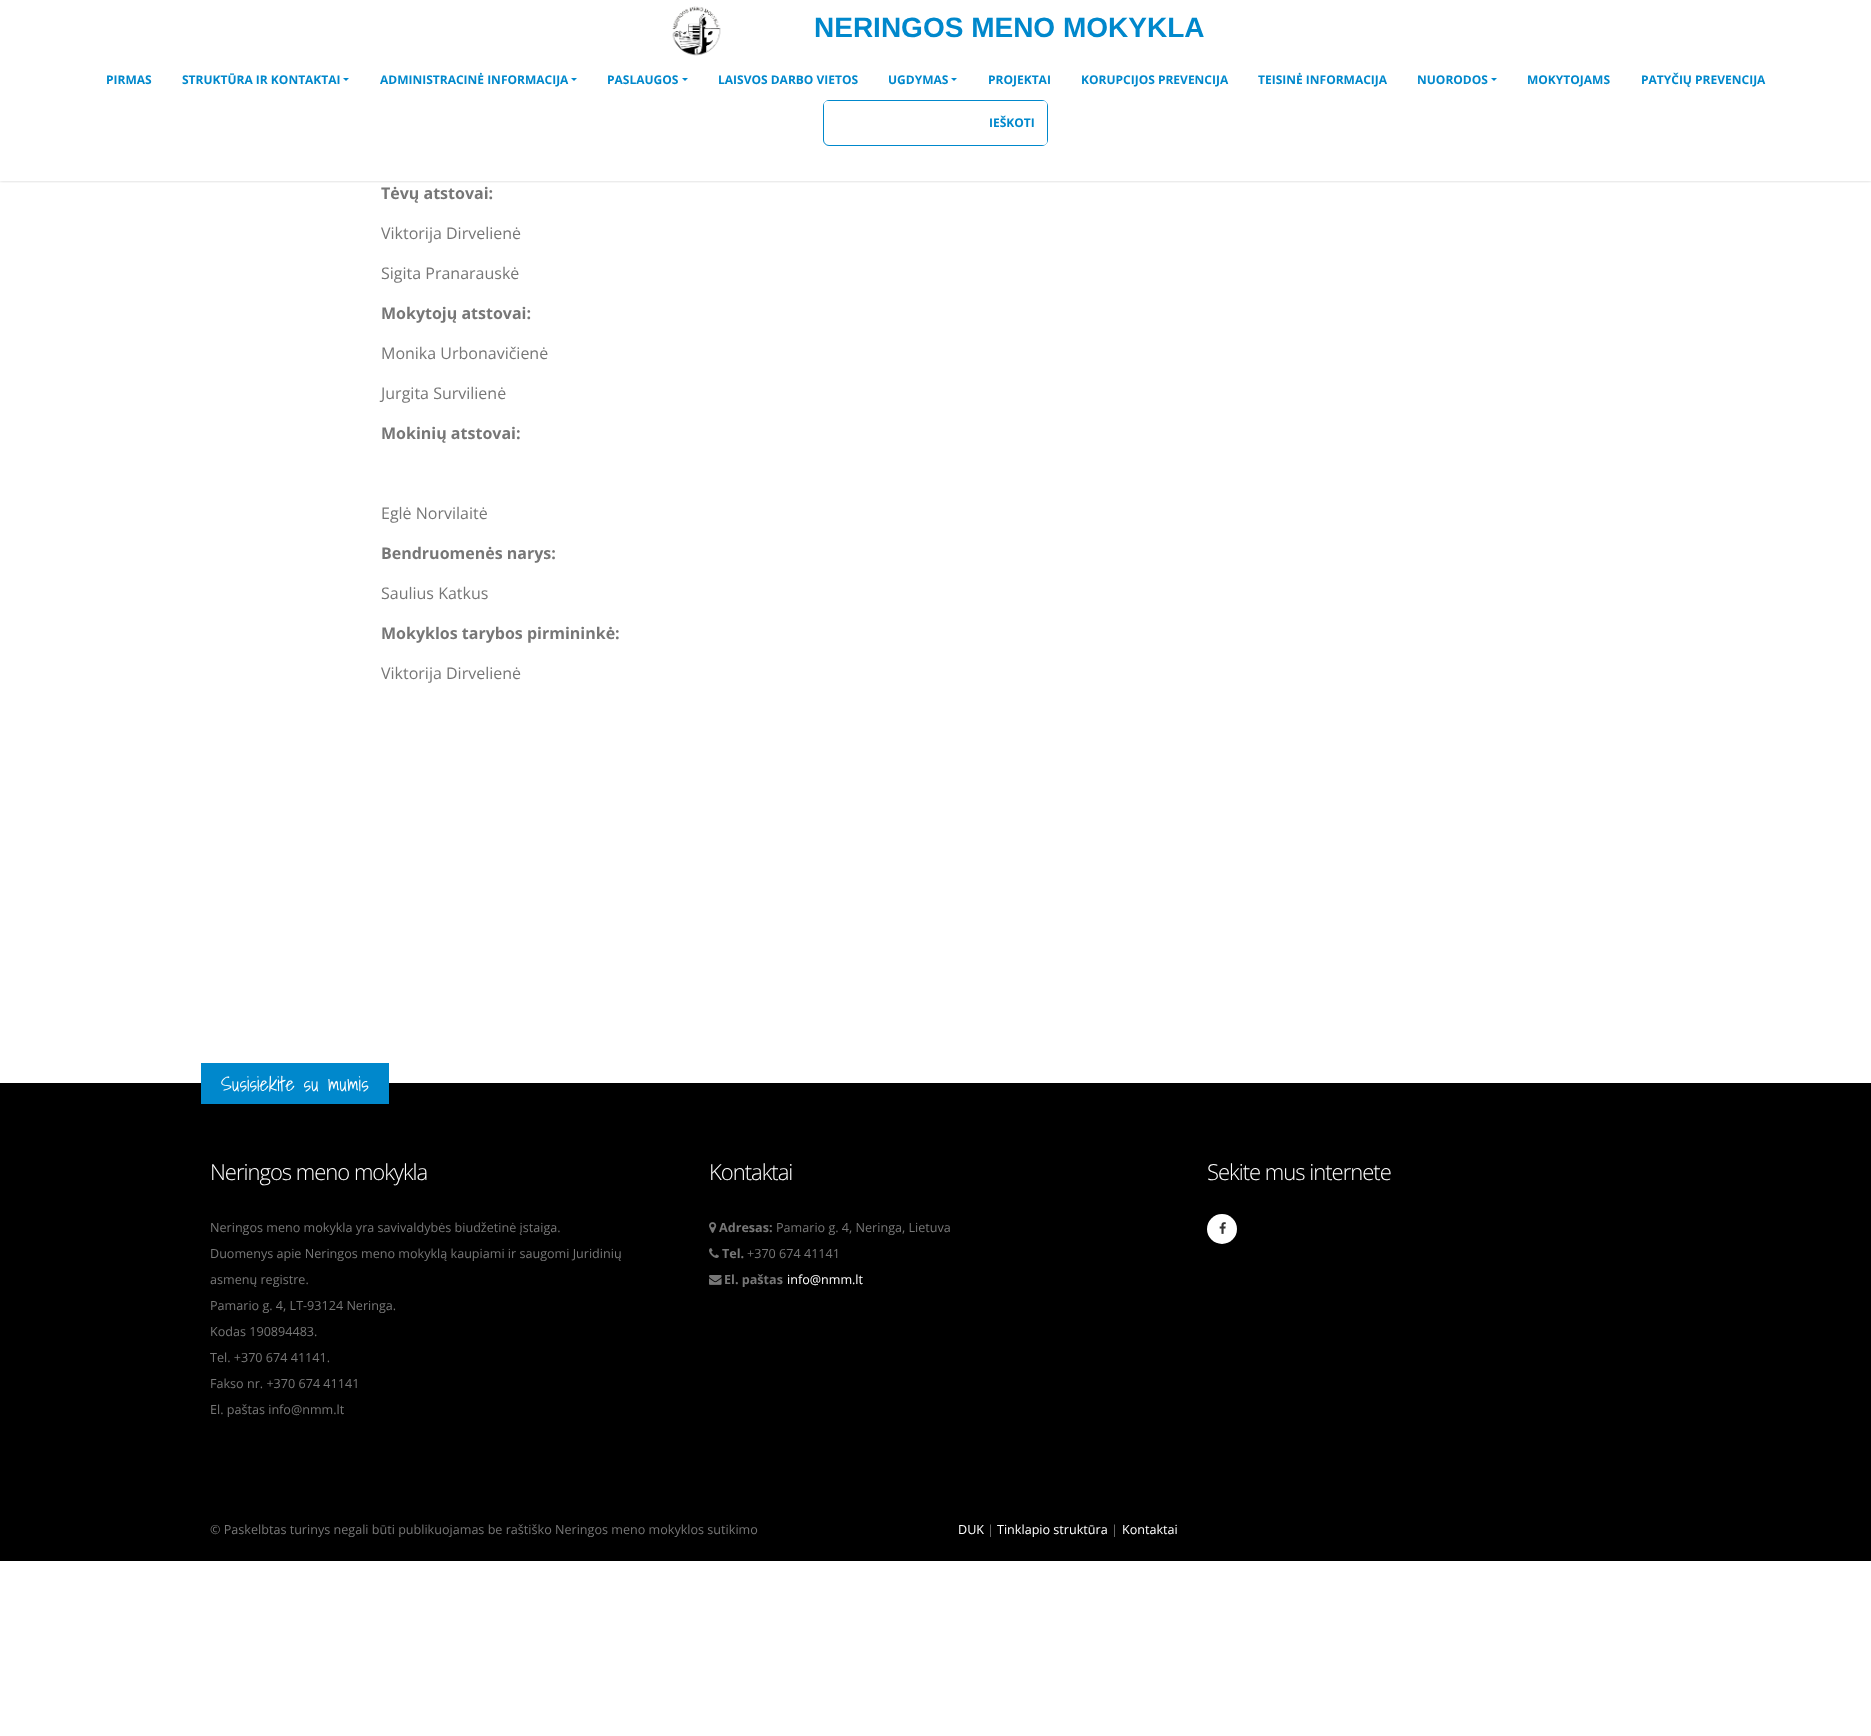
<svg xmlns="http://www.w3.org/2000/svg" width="1871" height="1736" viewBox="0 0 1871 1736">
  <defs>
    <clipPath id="clip1"><rect x="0" y="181" width="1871" height="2"/></clipPath>
    <filter id="blur1" x="-50%" y="-200%" width="200%" height="500%"><feGaussianBlur stdDeviation="1.5"/></filter>
  </defs>
  <rect width="100%" height="100%" fill="#ffffff"/>
  <g clip-path="url(#clip1)">
    <rect x="0" y="0" width="1871" height="181" fill="#000000" fill-opacity="0.2" filter="url(#blur1)"/>
  </g>
  <image x="672" y="6" width="49" height="50" href="img1.png"/>
  <text x="814" y="37" font-family="Liberation Sans" font-size="28" font-weight="bold" fill="#0088cc">NERINGOS MENO MOKYKLA</text>
  <text x="106" y="84" font-family="Open Sans" font-size="12" font-weight="bold" fill="#0088cc">PIRMAS</text>
  <text x="182" y="84" font-family="Open Sans" font-size="12" font-weight="bold" fill="#0088cc">STRUKTŪRA IR KONTAKTAI</text>
  <path d="M343 78H349L346 81Z" fill="#0088cc"/>
  <text x="380" y="84" font-family="Open Sans" font-size="12" font-weight="bold" fill="#0088cc">ADMINISTRACINĖ INFORMACIJA</text>
  <path d="M571 78H577L574 81Z" fill="#0088cc"/>
  <text x="607" y="84" font-family="Open Sans" font-size="12" font-weight="bold" fill="#0088cc">PASLAUGOS</text>
  <path d="M682 78H688L685 81Z" fill="#0088cc"/>
  <text x="718" y="84" font-family="Open Sans" font-size="12" font-weight="bold" fill="#0088cc">LAISVOS DARBO VIETOS</text>
  <text x="888" y="84" font-family="Open Sans" font-size="12" font-weight="bold" fill="#0088cc">UGDYMAS</text>
  <path d="M951 78H957L954 81Z" fill="#0088cc"/>
  <text x="988" y="84" font-family="Open Sans" font-size="12" font-weight="bold" fill="#0088cc">PROJEKTAI</text>
  <text x="1081" y="84" font-family="Open Sans" font-size="12" font-weight="bold" fill="#0088cc">KORUPCIJOS PREVENCIJA</text>
  <text x="1258" y="84" font-family="Open Sans" font-size="12" font-weight="bold" fill="#0088cc">TEISINĖ INFORMACIJA</text>
  <text x="1417" y="84" font-family="Open Sans" font-size="12" font-weight="bold" fill="#0088cc">NUORODOS</text>
  <path d="M1491 78H1497L1494 81Z" fill="#0088cc"/>
  <text x="1527" y="84" font-family="Open Sans" font-size="12" font-weight="bold" fill="#0088cc">MOKYTOJAMS</text>
  <text x="1641" y="84" font-family="Open Sans" font-size="12" font-weight="bold" fill="#0088cc">PATYČIŲ PREVENCIJA</text>
  <rect x="823.5" y="100.5" width="224" height="45" rx="5.5" fill="none" stroke="#0088cc"/>
  <rect x="824" y="101" width="150" height="38" rx="4" fill="#ffffff"/>
  <rect x="977" y="101" width="70" height="44" rx="4" fill="#ffffff"/>
  <text x="989" y="127" font-family="Open Sans" font-size="12" font-weight="bold" fill="#0088cc">IEŠKOTI</text>
  <text x="381" y="199" font-family="Open Sans" font-size="16" font-weight="bold" fill="#777777">Tėvų atstovai:</text>
  <text x="381" y="239" font-family="Open Sans" font-size="16" fill="#777777">Viktorija Dirvelienė</text>
  <text x="381" y="279" font-family="Open Sans" font-size="16" fill="#777777">Sigita Pranarauskė</text>
  <text x="381" y="319" font-family="Open Sans" font-size="16" font-weight="bold" fill="#777777">Mokytojų atstovai:</text>
  <text x="381" y="359" font-family="Open Sans" font-size="16" fill="#777777">Monika Urbonavičienė</text>
  <text x="381" y="399" font-family="Open Sans" font-size="16" fill="#777777">Jurgita Survilienė</text>
  <text x="381" y="439" font-family="Open Sans" font-size="16" font-weight="bold" fill="#777777">Mokinių atstovai:</text>
  <text x="381" y="519" font-family="Open Sans" font-size="16" fill="#777777">Eglė Norvilaitė</text>
  <text x="381" y="559" font-family="Open Sans" font-size="16" font-weight="bold" fill="#777777">Bendruomenės narys:</text>
  <text x="381" y="599" font-family="Open Sans" font-size="16" fill="#777777">Saulius Katkus</text>
  <text x="381" y="639" font-family="Open Sans" font-size="16" font-weight="bold" fill="#777777">Mokyklos tarybos pirmininkė:</text>
  <text x="381" y="679" font-family="Open Sans" font-size="16" fill="#777777">Viktorija Dirvelienė</text>
  <rect x="0" y="1083" width="1871" height="478" fill="#000000"/>
  <rect x="201" y="1063" width="188" height="41" fill="#0088cc"/>
  <text x="221" y="1091" font-family="Shadows Into Light" font-size="20" font-weight="300" fill="#ffffff">Susisiekite su mumis</text>
  <text x="210" y="1180" font-family="Open Sans" font-size="22" font-weight="300" letter-spacing="-1" fill="#ffffff">Neringos meno mokykla</text>
  <text x="210" y="1232" font-family="Open Sans" font-size="12.6" fill="#777777">Neringos meno mokykla yra savivaldybės biudžetinė įstaiga.</text>
  <text x="210" y="1258" font-family="Open Sans" font-size="12.6" fill="#777777">Duomenys apie Neringos meno mokyklą kaupiami ir saugomi Juridinių</text>
  <text x="210" y="1284" font-family="Open Sans" font-size="12.6" fill="#777777">asmenų registre.</text>
  <text x="210" y="1310" font-family="Open Sans" font-size="12.6" fill="#777777">Pamario g. 4, LT-93124 Neringa.</text>
  <text x="210" y="1336" font-family="Open Sans" font-size="12.6" fill="#777777">Kodas 190894483.</text>
  <text x="210" y="1362" font-family="Open Sans" font-size="12.6" fill="#777777">Tel. +370 674 41141.</text>
  <text x="210" y="1388" font-family="Open Sans" font-size="12.6" fill="#777777">Fakso nr. +370 674 41141</text>
  <text x="210" y="1414" font-family="Open Sans" font-size="12.6" fill="#777777">El. paštas info@nmm.lt</text>
  <text x="709" y="1180" font-family="Open Sans" font-size="22" font-weight="300" letter-spacing="-1" fill="#ffffff">Kontaktai</text>
  <image x="709" y="1222" width="8" height="11" href="img2.png"/>
  <text x="719" y="1232" font-family="Open Sans" font-size="12.6" font-weight="bold" fill="#777777">Adresas:</text>
  <text x="776" y="1232" font-family="Open Sans" font-size="12.6" fill="#777777">Pamario g. 4, Neringa, Lietuva</text>
  <image x="709" y="1248" width="10" height="10" href="img3.png"/>
  <text x="722" y="1258" font-family="Open Sans" font-size="12.6" font-weight="bold" fill="#777777">Tel.</text>
  <text x="747" y="1258" font-family="Open Sans" font-size="12.6" fill="#777777">+370 674 41141</text>
  <image x="709" y="1275" width="13" height="10" href="img4.png"/>
  <text x="724" y="1284" font-family="Open Sans" font-size="12.6" font-weight="bold" fill="#777777">El. paštas</text>
  <text x="787" y="1284" font-family="Open Sans" font-size="12.6" fill="#ffffff">info@nmm.lt</text>
  <text x="1207" y="1180" font-family="Open Sans" font-size="22" font-weight="300" letter-spacing="-1" fill="#ffffff">Sekite mus internete</text>
  <circle cx="1222" cy="1229" r="15" fill="#ffffff"/>
  <image x="1219" y="1222" width="7" height="12" href="img5.png"/>
  <text x="210" y="1534" font-family="Open Sans" font-size="12.6" fill="#777777">© Paskelbtas turinys negali būti publikuojamas be raštiško Neringos meno mokyklos sutikimo</text>
  <text x="958" y="1534" font-family="Open Sans" font-size="12.6" fill="#ffffff">DUK</text>
  <text x="987" y="1534" font-family="Open Sans" font-size="12.6" fill="#777777">|</text>
  <text x="997" y="1534" font-family="Open Sans" font-size="12.6" fill="#ffffff">Tinklapio struktūra</text>
  <text x="1111" y="1534" font-family="Open Sans" font-size="12.6" fill="#777777">|</text>
  <text x="1122" y="1534" font-family="Open Sans" font-size="12.6" fill="#ffffff">Kontaktai</text>
</svg>
